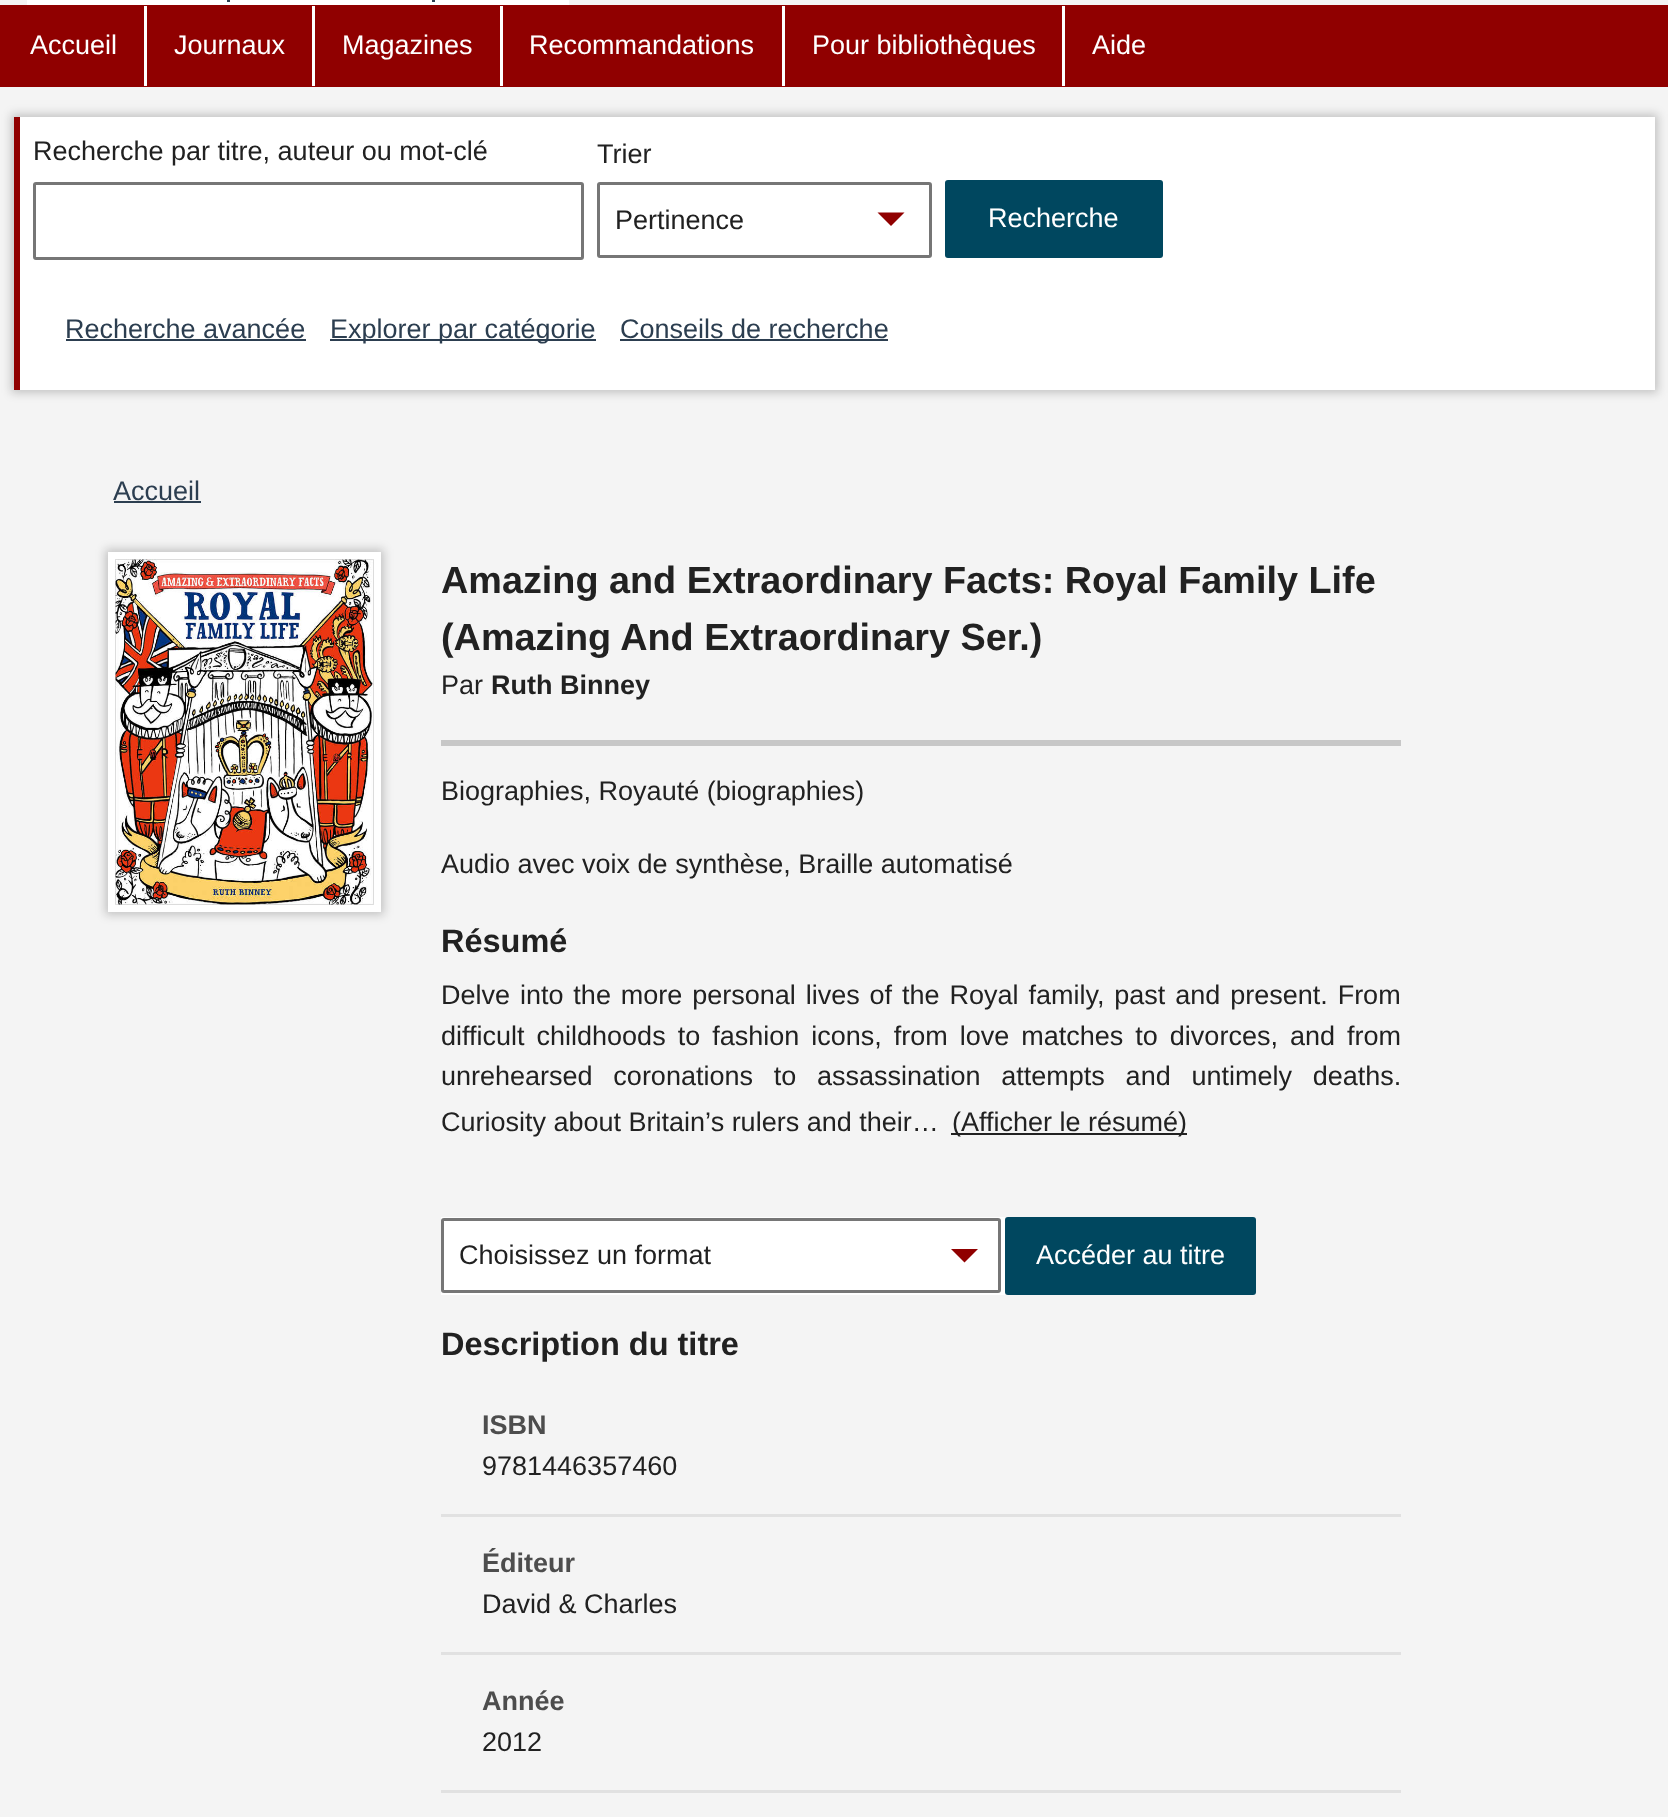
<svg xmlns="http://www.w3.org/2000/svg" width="1668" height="1817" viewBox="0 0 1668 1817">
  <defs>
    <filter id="blur1" x="-50%" y="-200%" width="200%" height="500%"><feGaussianBlur stdDeviation="5"/></filter>
  </defs>
  <rect width="100%" height="100%" fill="#f4f4f4"/>
  <rect x="27" y="0" width="542" height="5" fill="#ffffff"/>
  <rect x="227" y="0" width="3" height="2" fill="#2c3e50"/>
  <rect x="432" y="0" width="3" height="2" fill="#2c3e50"/>
  <rect x="0" y="5" width="1668" height="82" fill="#900000"/>
  <rect x="144" y="6" width="3" height="80" fill="#ffffff"/>
  <text x="30" y="54" font-family="Liberation Sans" font-size="27" fill="#ffffff">Accueil</text>
  <rect x="312" y="6" width="3" height="80" fill="#ffffff"/>
  <text x="174" y="54" font-family="Liberation Sans" font-size="27" fill="#ffffff">Journaux</text>
  <rect x="500" y="6" width="3" height="80" fill="#ffffff"/>
  <text x="342" y="54" font-family="Liberation Sans" font-size="27" fill="#ffffff">Magazines</text>
  <rect x="782" y="6" width="3" height="80" fill="#ffffff"/>
  <text x="529" y="54" font-family="Liberation Sans" font-size="27" fill="#ffffff">Recommandations</text>
  <rect x="1062" y="6" width="3" height="80" fill="#ffffff"/>
  <text x="812" y="54" font-family="Liberation Sans" font-size="27" fill="#ffffff">Pour bibliothèques</text>
  <text x="1092" y="54" font-family="Liberation Sans" font-size="27" fill="#ffffff">Aide</text>
  <rect x="11" y="114" width="1647" height="279" fill="#000000" fill-opacity="0.2" filter="url(#blur1)"/>
  <rect x="20" y="117" width="1635" height="273" fill="#ffffff"/>
  <rect x="14" y="117" width="6" height="273" fill="#900000"/>
  <text x="33" y="160" font-family="Liberation Sans" font-size="27" fill="#212121">Recherche par titre, auteur ou mot-clé</text>
  <rect x="34.5" y="183.5" width="548" height="75" rx="1.5" fill="none" stroke="#767676" stroke-width="3"/>
  <text x="597" y="163" font-family="Liberation Sans" font-size="27" fill="#212121">Trier</text>
  <path d="M898 219L891 226L877.5 212.5H904.5Z" fill="#900000"/>
  <rect x="598.5" y="183.5" width="332" height="73" rx="1.5" fill="none" stroke="#767676" stroke-width="3"/>
  <text x="615" y="229" font-family="Liberation Sans" font-size="27" fill="#212121">Pertinence</text>
  <rect x="945" y="180" width="218" height="78" rx="3" fill="#00475f"/>
  <text x="988" y="227" font-family="Liberation Sans" font-size="27" fill="#ffffff">Recherche</text>
  <text x="65" y="338" font-family="Liberation Sans" font-size="27" fill="#2c3e50">Recherche avancée</text>
  <rect x="66" y="339" width="240" height="2" fill="#2c3e50"/>
  <rect x="330" y="339" width="266" height="2" fill="#2c3e50"/>
  <text x="330" y="338" font-family="Liberation Sans" font-size="27" fill="#2c3e50">Explorer par catégorie</text>
  <text x="620" y="338" font-family="Liberation Sans" font-size="27" fill="#2c3e50">Conseils de recherche</text>
  <rect x="620" y="339" width="268" height="2" fill="#2c3e50"/>
  <text x="113" y="500" font-family="Liberation Sans" font-size="27" fill="#2c3e50">Accueil</text>
  <rect x="114" y="501" width="87" height="2" fill="#2c3e50"/>
  <rect x="105" y="549" width="279" height="366" fill="#000000" fill-opacity="0.2" filter="url(#blur1)"/>
  <rect x="112" y="556" width="265" height="352" fill="none" stroke="#ffffff" stroke-width="8"/>
  <image x="115" y="559" width="259" height="346" href="img1.png"/>
  <text x="441" y="593" font-family="Liberation Sans" font-size="37.8" font-weight="bold" fill="#212121">Amazing and Extraordinary Facts: Royal Family Life</text>
  <text x="441" y="650" font-family="Liberation Sans" font-size="37.8" font-weight="bold" fill="#212121">(Amazing And Extraordinary Ser.)</text>
  <text x="441" y="694" font-family="Liberation Sans" font-size="27" fill="#212121">Par</text>
  <text x="491" y="694" font-family="Liberation Sans" font-size="27" font-weight="bold" fill="#212121">Ruth Binney</text>
  <rect x="441" y="740" width="960" height="6" fill="#c7c7c7"/>
  <text x="441" y="800" font-family="Liberation Sans" font-size="27" fill="#212121">Biographies, Royauté (biographies)</text>
  <text x="441" y="873" font-family="Liberation Sans" font-size="27" fill="#212121">Audio avec voix de synthèse, Braille automatisé</text>
  <text x="441" y="952" font-family="Liberation Sans" font-size="32.5" font-weight="bold" fill="#212121">Résumé</text>
  <text x="441" y="1004" word-spacing="2.4" font-family="Liberation Sans" font-size="27" fill="#212121">Delve into the more personal lives of the Royal family, past and present. From</text>
  <text x="441" y="1045" word-spacing="4.5" font-family="Liberation Sans" font-size="27" fill="#212121">difficult childhoods to fashion icons, from love matches to divorces, and from</text>
  <text x="441" y="1085" word-spacing="13.25" font-family="Liberation Sans" font-size="27" fill="#212121">unrehearsed coronations to assassination attempts and untimely deaths.</text>
  <text x="441" y="1131" font-family="Liberation Sans" font-size="27" fill="#212121">Curiosity about Britain’s rulers and their…</text>
  <rect x="951" y="1133" width="236" height="2" fill="#212121"/>
  <text x="952" y="1131" font-family="Liberation Sans" font-size="27" fill="#212121">(Afficher le résumé)</text>
  <rect x="441" y="1217" width="564" height="78" fill="#ffffff"/>
  <path d="M971.5 1255.5L964.5 1262.5L951 1249H978Z" fill="#900000"/>
  <rect x="442.5" y="1219.5" width="557" height="72" rx="1.5" fill="none" stroke="#767676" stroke-width="3"/>
  <text x="459" y="1264" font-family="Liberation Sans" font-size="27" fill="#212121">Choisissez un format</text>
  <rect x="1005" y="1217" width="251" height="78" rx="3" fill="#00475f"/>
  <text x="1036" y="1264" font-family="Liberation Sans" font-size="27" fill="#ffffff">Accéder au titre</text>
  <text x="441" y="1355" font-family="Liberation Sans" font-size="32.5" font-weight="bold" fill="#212121">Description du titre</text>
  <rect x="441" y="1514" width="960" height="3" fill="#e1e1e1"/>
  <text x="482" y="1434" font-family="Liberation Sans" font-size="27" font-weight="bold" fill="#4d4d4d">ISBN</text>
  <text x="482" y="1475" font-family="Liberation Sans" font-size="27" fill="#212121">9781446357460</text>
  <rect x="441" y="1652" width="960" height="3" fill="#e1e1e1"/>
  <text x="482" y="1572" font-family="Liberation Sans" font-size="27" font-weight="bold" fill="#4d4d4d">Éditeur</text>
  <text x="482" y="1613" font-family="Liberation Sans" font-size="27" fill="#212121">David &amp; Charles</text>
  <rect x="441" y="1790" width="960" height="3" fill="#e1e1e1"/>
  <text x="482" y="1710" font-family="Liberation Sans" font-size="27" font-weight="bold" fill="#4d4d4d">Année</text>
  <text x="482" y="1751" font-family="Liberation Sans" font-size="27" fill="#212121">2012</text>
</svg>
